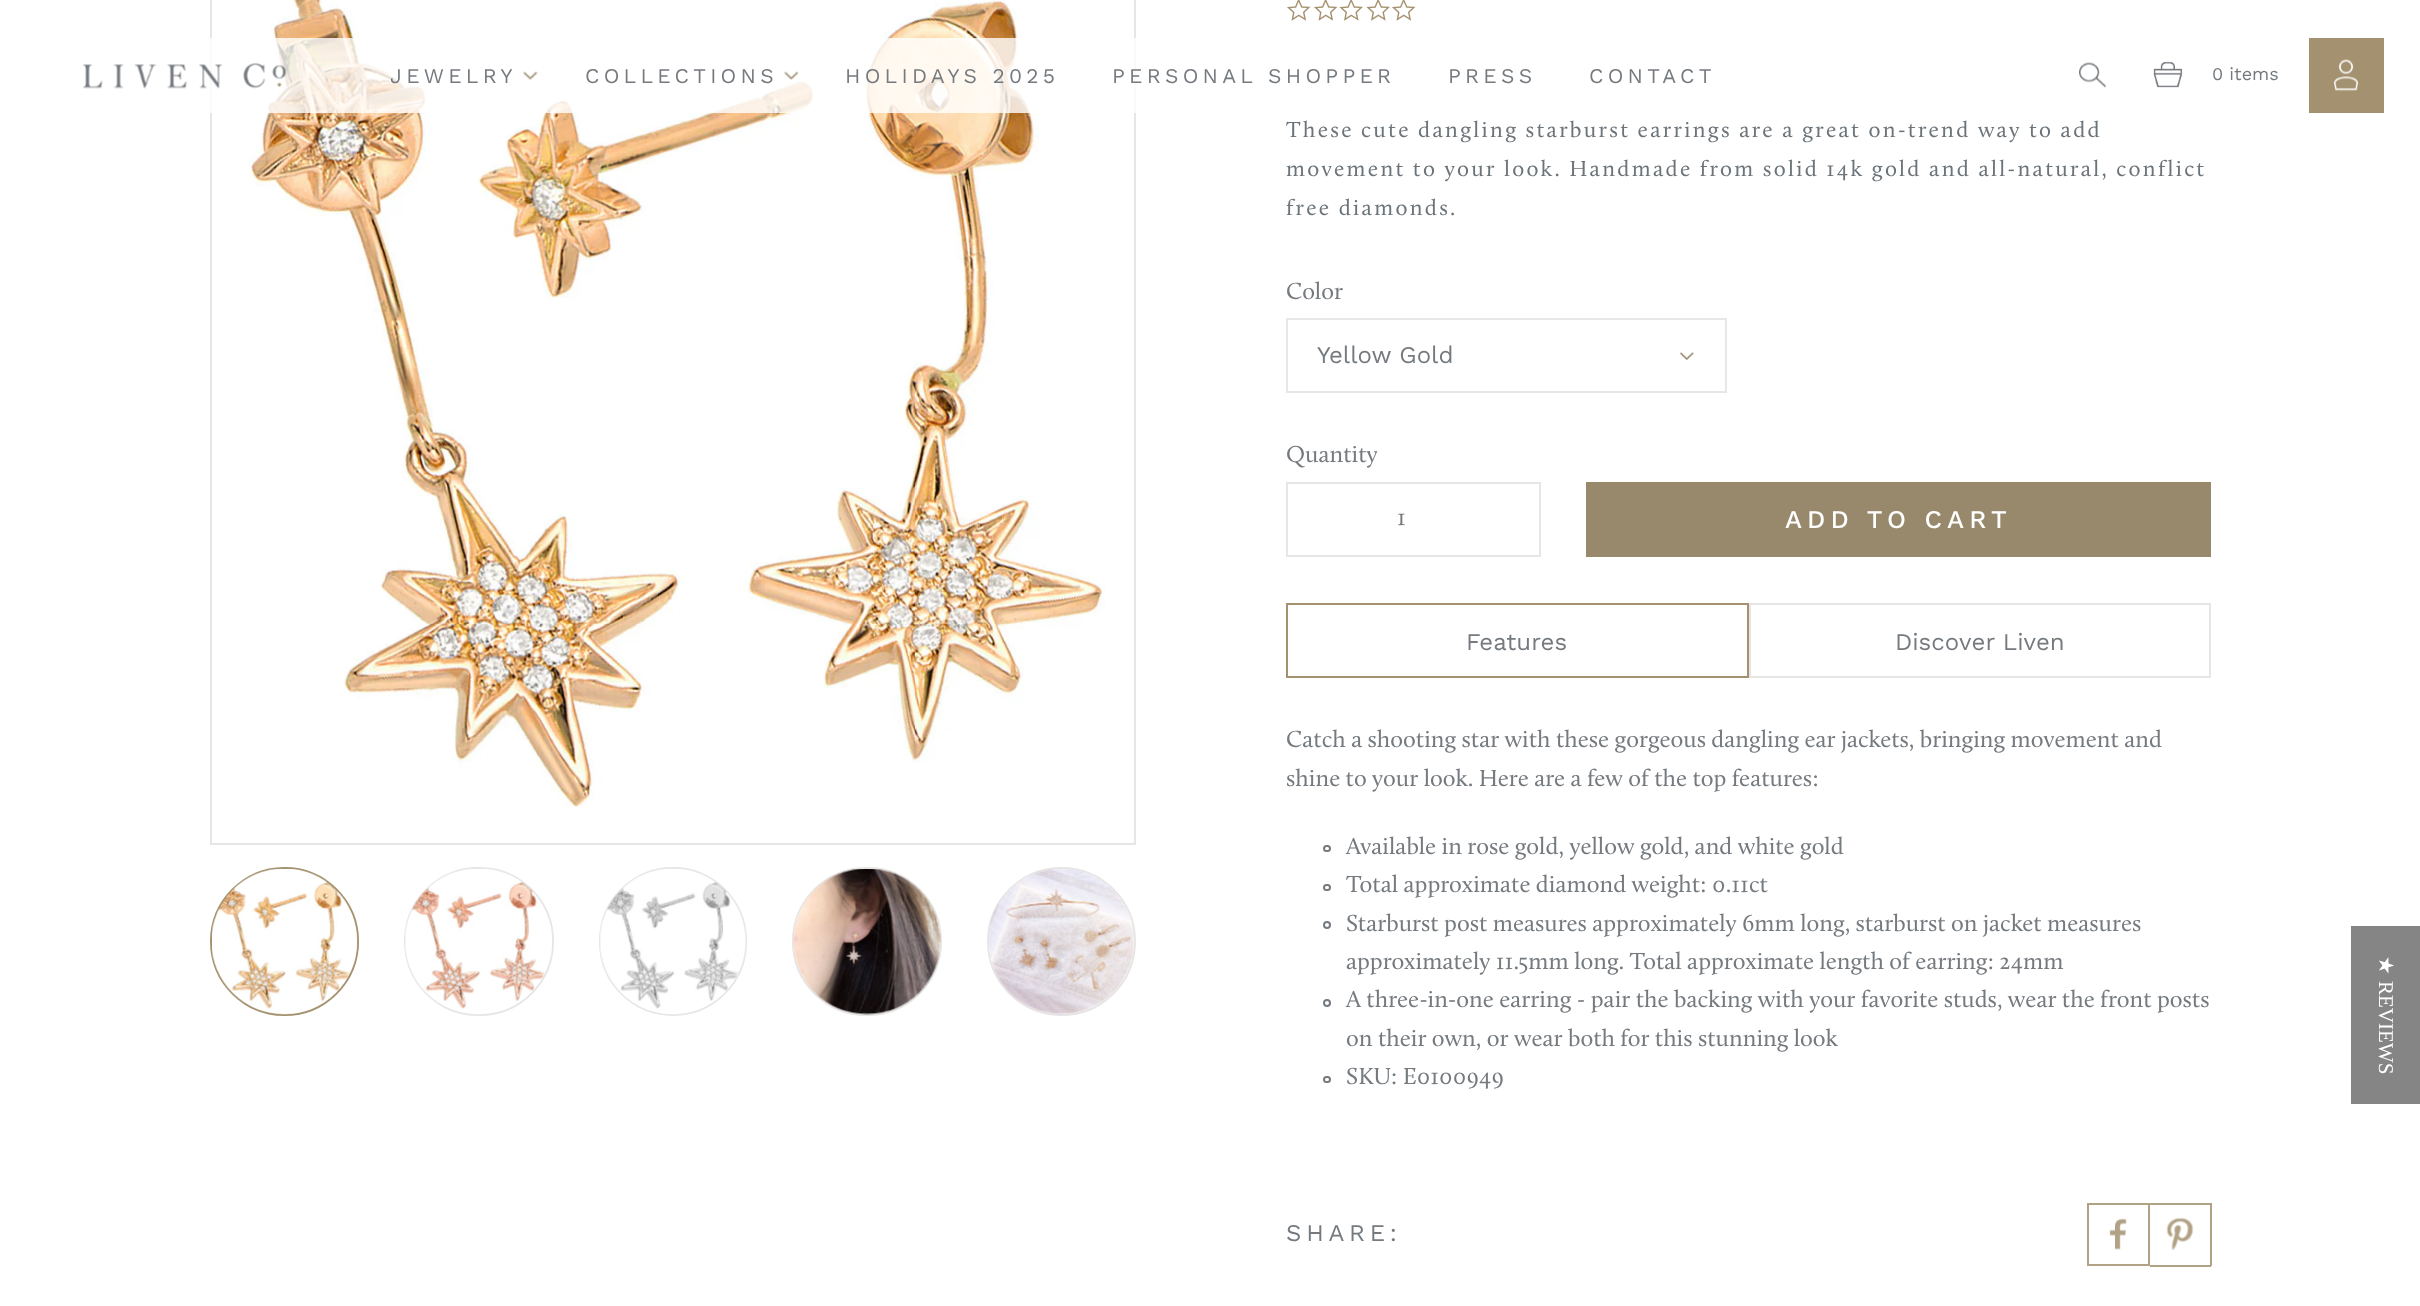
<svg xmlns="http://www.w3.org/2000/svg" width="2420" height="1306" viewBox="0 0 2420 1306">
  <rect width="100%" height="100%" fill="#ffffff"/>
  <rect x="211" y="-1" width="924" height="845" fill="none" stroke="#e7e6e5" stroke-width="2"/>
  <image x="249" y="0" width="856" height="807" href="img7.png"/>
  <rect x="210" y="38" width="926" height="75" fill="#ffffff" fill-opacity="0.8"/>
  <image x="83" y="63" width="204" height="26" href="img1.png"/>
  <text x="390" y="83" font-family="Work Sans" font-size="21" letter-spacing="4.25" fill="#757a7f">JEWELRY</text>
  <image x="523" y="71" width="15" height="9" href="img2.png"/>
  <text x="585" y="83" font-family="Work Sans" font-size="21" letter-spacing="4.25" fill="#757a7f">COLLECTIONS</text>
  <image x="784" y="71" width="15" height="9" href="img3.png"/>
  <text x="845" y="83" font-family="Work Sans" font-size="21" letter-spacing="4.25" fill="#757a7f">HOLIDAYS 2025</text>
  <text x="1112" y="83" font-family="Work Sans" font-size="21" letter-spacing="4.25" fill="#757a7f">PERSONAL SHOPPER</text>
  <text x="1448" y="83" font-family="Work Sans" font-size="21" letter-spacing="4.25" fill="#757a7f">PRESS</text>
  <text x="1589" y="83" font-family="Work Sans" font-size="21" letter-spacing="4.25" fill="#757a7f">CONTACT</text>
  <image x="2079" y="62" width="27" height="26" href="img4.png"/>
  <image x="2153" y="61" width="30" height="27" href="img5.png"/>
  <text x="2212" y="80" font-family="Work Sans" font-size="18" fill="#757a7f">0 items</text>
  <rect x="2309" y="38" width="75" height="75" fill="#a4916f"/>
  <image x="2334" y="59" width="24" height="32" href="img6.png"/>
  <circle cx="284.5" cy="941.5" r="73.5" fill="none" stroke="#a4916f" stroke-width="2"/>
  <image x="212" y="869" width="146" height="146" href="img8.png"/>
  <rect x="405" y="868" width="148" height="147" rx="73.5" fill="none" stroke="#e7e6e5" stroke-width="2"/>
  <image x="405" y="869" width="147" height="146" href="img9.png"/>
  <rect x="600" y="868" width="146" height="147" rx="73" fill="none" stroke="#e7e6e5" stroke-width="2"/>
  <image x="600" y="869" width="146" height="146" href="img10.png"/>
  <rect x="793" y="868" width="148" height="147" rx="73.5" fill="none" stroke="#e7e6e5" stroke-width="2"/>
  <image x="793" y="869" width="148" height="146" href="img11.png"/>
  <circle cx="1061.5" cy="941.5" r="73.5" fill="none" stroke="#e7e6e5" stroke-width="2"/>
  <image x="988" y="869" width="146" height="146" href="img12.png"/>
  <image x="1287" y="0" width="24" height="21" href="img13.png"/>
  <image x="1314" y="0" width="24" height="21" href="img13.png"/>
  <image x="1339" y="0" width="24" height="21" href="img14.png"/>
  <image x="1366" y="0" width="24" height="21" href="img14.png"/>
  <image x="1392" y="0" width="24" height="21" href="img13.png"/>
  <text x="1286" y="137" font-family="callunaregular" font-size="22.5" letter-spacing="2.25" fill="#6c747a">These cute dangling starburst earrings are a great on-trend way to add</text>
  <text x="1286" y="176" font-family="callunaregular" font-size="22.5" letter-spacing="2.25" fill="#6c747a">movement to your look. Handmade from solid 14k gold and all-natural, conflict</text>
  <text x="1286" y="215" font-family="callunaregular" font-size="22.5" letter-spacing="2.25" fill="#6c747a">free diamonds.</text>
  <text x="1286" y="299" font-family="callunaregular" font-size="24" fill="#757a7f">Color</text>
  <image x="1680" y="352" width="14" height="8" href="img15.png"/>
  <rect x="1287" y="319" width="439" height="73" fill="none" stroke="#e7e7e6" stroke-width="2"/>
  <text x="1317" y="363" font-family="Work Sans" font-size="24" fill="#757a7f">Yellow Gold</text>
  <text x="1286" y="462" font-family="callunaregular" font-size="24" fill="#757a7f">Quantity</text>
  <rect x="1287" y="483" width="253" height="73" fill="none" stroke="#e7e6e5" stroke-width="2"/>
  <text x="1397" y="525" font-family="callunaregular" font-size="24" fill="#757a7f">1</text>
  <rect x="1586" y="482" width="625" height="75" fill="#98896c"/>
  <text x="1785" y="528" font-family="Work Sans" font-size="25.5" font-weight="500" letter-spacing="5.1" fill="#ffffff">ADD TO CART</text>
  <rect x="1287" y="604" width="461" height="73" fill="none" stroke="#a4916f" stroke-width="2"/>
  <text x="1466" y="650" font-family="Work Sans" font-size="24" fill="#757a7f">Features</text>
  <rect x="1750" y="604" width="460" height="73" fill="none" stroke="#e7e6e5" stroke-width="2"/>
  <text x="1895" y="650" font-family="Work Sans" font-size="24" fill="#757a7f">Discover Liven</text>
  <text x="1286" y="747" font-family="callunaregular" font-size="24" fill="#757a7f">Catch a shooting star with these gorgeous dangling ear jackets, bringing movement and</text>
  <text x="1286" y="786" font-family="callunaregular" font-size="24" fill="#757a7f">shine to your look. Here are a few of the top features:</text>
  <rect x="1324" y="846" width="6" height="5" rx="2.5" fill="none" stroke="#757a7f" stroke-width="2"/>
  <text x="1346" y="854" font-family="callunaregular" font-size="24" fill="#757a7f">Available in rose gold, yellow gold, and white gold</text>
  <rect x="1324" y="885" width="6" height="5" rx="2.5" fill="none" stroke="#757a7f" stroke-width="2"/>
  <text x="1346" y="892" font-family="callunaregular" font-size="24" fill="#757a7f">Total approximate diamond weight: 0.11ct</text>
  <circle cx="1327" cy="925" r="3" fill="none" stroke="#757a7f" stroke-width="2"/>
  <text x="1346" y="931" font-family="callunaregular" font-size="24" fill="#757a7f">Starburst post measures approximately 6mm long, starburst on jacket measures</text>
  <text x="1346" y="969" font-family="callunaregular" font-size="24" fill="#757a7f">approximately 11.5mm long. Total approximate length of earring: 24mm</text>
  <circle cx="1327" cy="1003" r="3" fill="none" stroke="#757a7f" stroke-width="2"/>
  <text x="1346" y="1007" font-family="callunaregular" font-size="24" fill="#757a7f">A three-in-one earring - pair the backing with your favorite studs, wear the front posts</text>
  <text x="1346" y="1046" font-family="callunaregular" font-size="24" fill="#757a7f">on their own, or wear both for this stunning look</text>
  <rect x="1324" y="1077" width="6" height="5" rx="2.5" fill="none" stroke="#757a7f" stroke-width="2"/>
  <text x="1346" y="1084" font-family="callunaregular" font-size="24" fill="#757a7f">SKU: E0100949</text>
  <text x="1286" y="1241" font-family="Work Sans" font-size="24" letter-spacing="4.75" fill="#757a7f">SHARE:</text>
  <rect x="2088" y="1204" width="61" height="61" fill="none" stroke="#b2a285" stroke-width="2"/>
  <image x="2109" y="1218" width="18" height="32" href="img16.png"/>
  <rect x="2150" y="1203" width="61" height="2" fill="#b2a285"/>
  <rect x="2210" y="1203" width="2" height="63" fill="#b2a285"/>
  <rect x="2150" y="1265" width="61" height="2" fill="#b2a285"/>
  <image x="2166" y="1217" width="28" height="33" href="img17.png"/>
  <rect x="2351" y="926" width="69" height="178" fill="#858585"/>
  <text x="2379" y="956" transform="rotate(90 2379 956)" font-family="DejaVu Sans" font-size="21" fill="#ffffff">★</text>
  <text x="2379" y="981" transform="rotate(90 2379 981)" font-family="Liberation Serif" font-size="21" fill="#ffffff">REVIEWS</text>
</svg>
